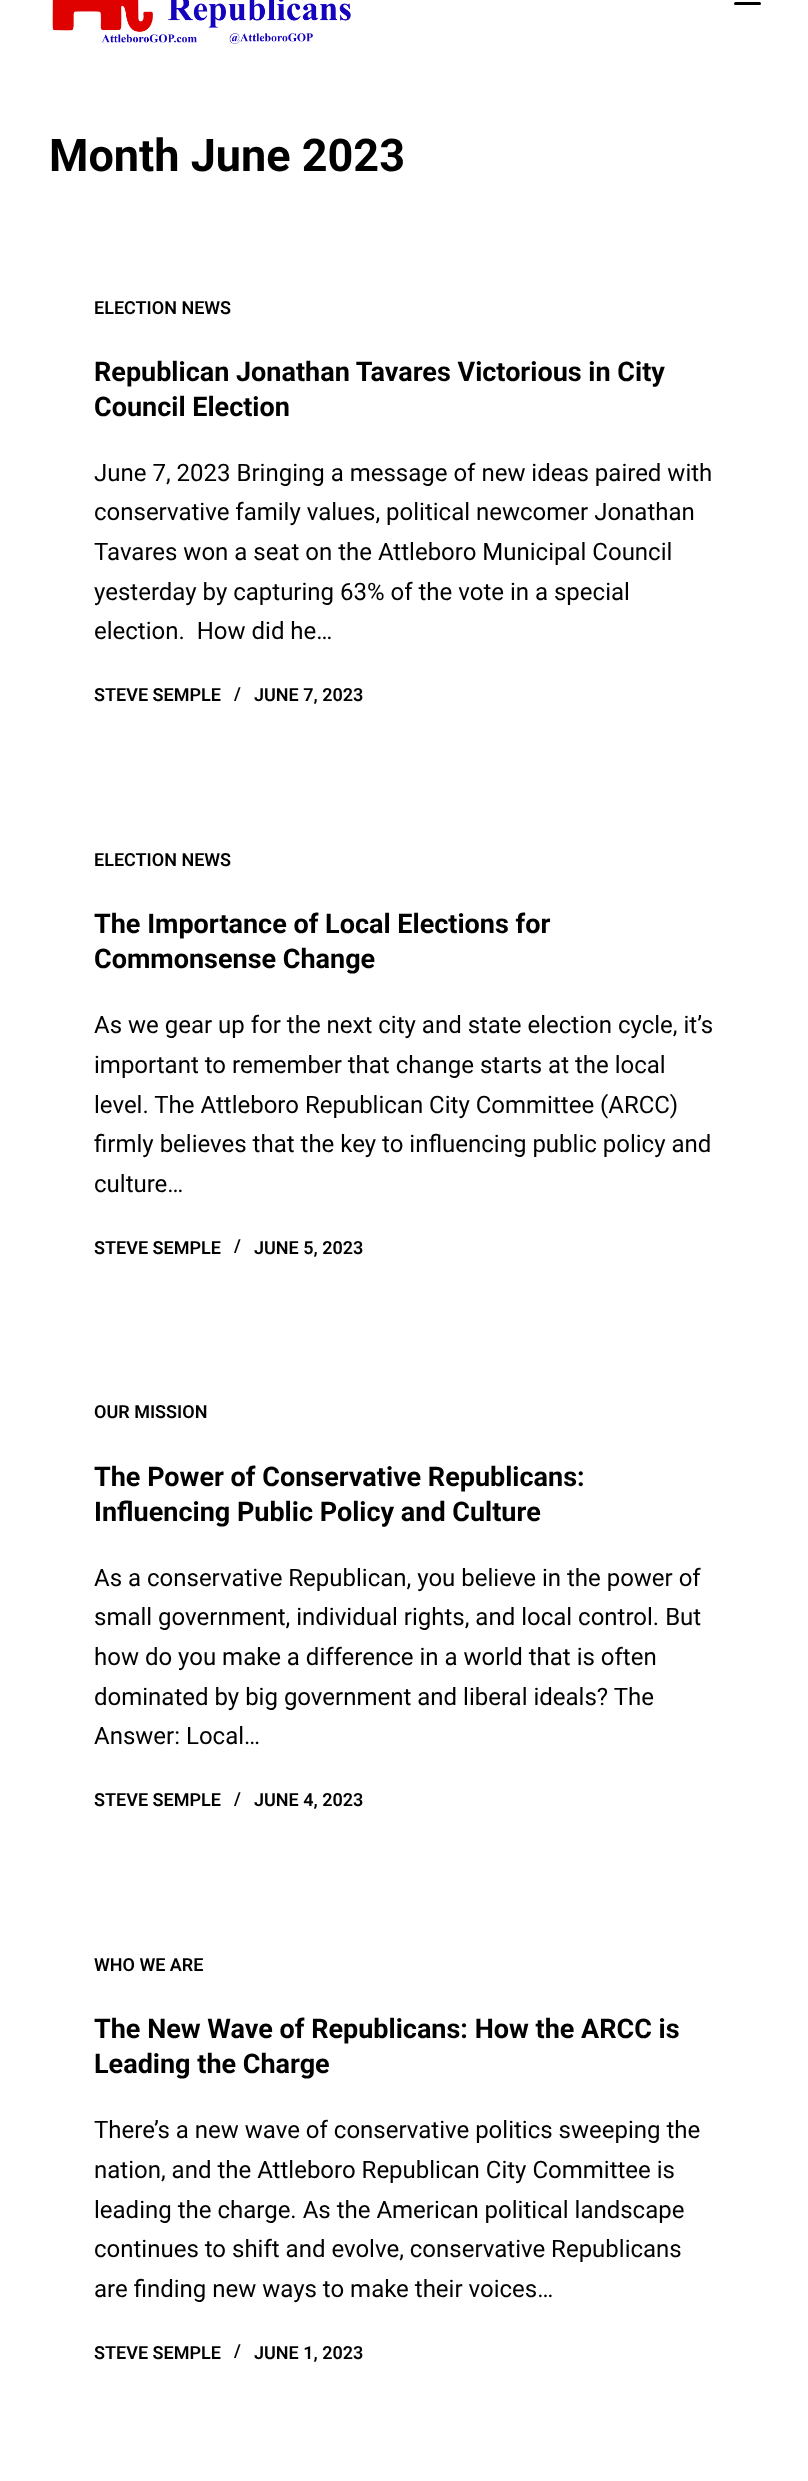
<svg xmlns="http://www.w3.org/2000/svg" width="808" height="2481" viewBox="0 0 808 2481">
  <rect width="100%" height="100%" fill="#ffffff"/>
  <image x="52" y="0" width="299" height="44" href="img1.png"/>
  <rect x="734" y="2" width="27" height="3" rx="1.5" fill="#000000"/>
  <text x="49" y="171" font-family="Roboto" font-size="45" font-weight="bold" fill="#000000">Month June 2023</text>
  <text x="94" y="314" font-family="Roboto" font-size="18" font-weight="600" fill="#000000">ELECTION NEWS</text>
  <text x="94" y="381" font-family="Roboto" font-size="27" font-weight="bold" fill="#000000">Republican Jonathan Tavares Victorious in City</text>
  <text x="94" y="416" font-family="Roboto" font-size="27" font-weight="bold" fill="#000000">Council Election</text>
  <text x="94" y="481" font-family="Roboto" font-size="24" fill="#000000">June 7, 2023 Bringing a message of new ideas paired with</text>
  <text x="94" y="520" font-family="Roboto" font-size="24" fill="#000000">conservative family values, political newcomer Jonathan</text>
  <text x="94" y="560" font-family="Roboto" font-size="24" fill="#000000">Tavares won a seat on the Attleboro Municipal Council</text>
  <text x="94" y="600" font-family="Roboto" font-size="24" fill="#000000">yesterday by capturing 63% of the vote in a special</text>
  <text x="94" y="639" font-family="Roboto" font-size="24" fill="#000000" xml:space="preserve">election.  How did he…</text>
  <text x="94" y="701" font-family="Roboto" font-size="18" font-weight="600" fill="#000000">STEVE SEMPLE</text>
  <text x="234" y="700" font-family="Roboto" font-size="18" font-weight="600" fill="#000000">/</text>
  <text x="254" y="701" font-family="Roboto" font-size="18" font-weight="600" fill="#000000">JUNE 7, 2023</text>
  <text x="94" y="866" font-family="Roboto" font-size="18" font-weight="600" fill="#000000">ELECTION NEWS</text>
  <text x="94" y="933" font-family="Roboto" font-size="27" font-weight="bold" fill="#000000">The Importance of Local Elections for</text>
  <text x="94" y="968" font-family="Roboto" font-size="27" font-weight="bold" fill="#000000">Commonsense Change</text>
  <text x="94" y="1033" font-family="Roboto" font-size="24" fill="#000000">As we gear up for the next city and state election cycle, it’s</text>
  <text x="94" y="1073" font-family="Roboto" font-size="24" fill="#000000">important to remember that change starts at the local</text>
  <text x="94" y="1113" font-family="Roboto" font-size="24" fill="#000000">level. The Attleboro Republican City Committee (ARCC)</text>
  <text x="94" y="1152" font-family="Roboto" font-size="24" fill="#000000">firmly believes that the key to influencing public policy and</text>
  <text x="94" y="1192" font-family="Roboto" font-size="24" fill="#000000">culture…</text>
  <text x="94" y="1254" font-family="Roboto" font-size="18" font-weight="600" fill="#000000">STEVE SEMPLE</text>
  <text x="234" y="1252" font-family="Roboto" font-size="18" font-weight="600" fill="#000000">/</text>
  <text x="254" y="1254" font-family="Roboto" font-size="18" font-weight="600" fill="#000000">JUNE 5, 2023</text>
  <text x="94" y="1418" font-family="Roboto" font-size="18" font-weight="600" fill="#000000">OUR MISSION</text>
  <text x="94" y="1486" font-family="Roboto" font-size="27" font-weight="bold" fill="#000000">The Power of Conservative Republicans:</text>
  <text x="94" y="1521" font-family="Roboto" font-size="27" font-weight="bold" fill="#000000">Influencing Public Policy and Culture</text>
  <text x="94" y="1586" font-family="Roboto" font-size="24" fill="#000000">As a conservative Republican, you believe in the power of</text>
  <text x="94" y="1625" font-family="Roboto" font-size="24" fill="#000000">small government, individual rights, and local control. But</text>
  <text x="94" y="1665" font-family="Roboto" font-size="24" fill="#000000">how do you make a difference in a world that is often</text>
  <text x="94" y="1705" font-family="Roboto" font-size="24" fill="#000000">dominated by big government and liberal ideals? The</text>
  <text x="94" y="1744" font-family="Roboto" font-size="24" fill="#000000">Answer: Local…</text>
  <text x="94" y="1806" font-family="Roboto" font-size="18" font-weight="600" fill="#000000">STEVE SEMPLE</text>
  <text x="234" y="1805" font-family="Roboto" font-size="18" font-weight="600" fill="#000000">/</text>
  <text x="254" y="1806" font-family="Roboto" font-size="18" font-weight="600" fill="#000000">JUNE 4, 2023</text>
  <text x="94" y="1971" font-family="Roboto" font-size="18" font-weight="600" fill="#000000">WHO WE ARE</text>
  <text x="94" y="2038" font-family="Roboto" font-size="27" font-weight="bold" fill="#000000">The New Wave of Republicans: How the ARCC is</text>
  <text x="94" y="2073" font-family="Roboto" font-size="27" font-weight="bold" fill="#000000">Leading the Charge</text>
  <text x="94" y="2138" font-family="Roboto" font-size="24" fill="#000000">There’s a new wave of conservative politics sweeping the</text>
  <text x="94" y="2178" font-family="Roboto" font-size="24" fill="#000000">nation, and the Attleboro Republican City Committee is</text>
  <text x="94" y="2218" font-family="Roboto" font-size="24" fill="#000000">leading the charge. As the American political landscape</text>
  <text x="94" y="2257" font-family="Roboto" font-size="24" fill="#000000">continues to shift and evolve, conservative Republicans</text>
  <text x="94" y="2297" font-family="Roboto" font-size="24" fill="#000000">are finding new ways to make their voices…</text>
  <text x="94" y="2359" font-family="Roboto" font-size="18" font-weight="600" fill="#000000">STEVE SEMPLE</text>
  <text x="234" y="2357" font-family="Roboto" font-size="18" font-weight="600" fill="#000000">/</text>
  <text x="254" y="2359" font-family="Roboto" font-size="18" font-weight="600" fill="#000000">JUNE 1, 2023</text>
</svg>
